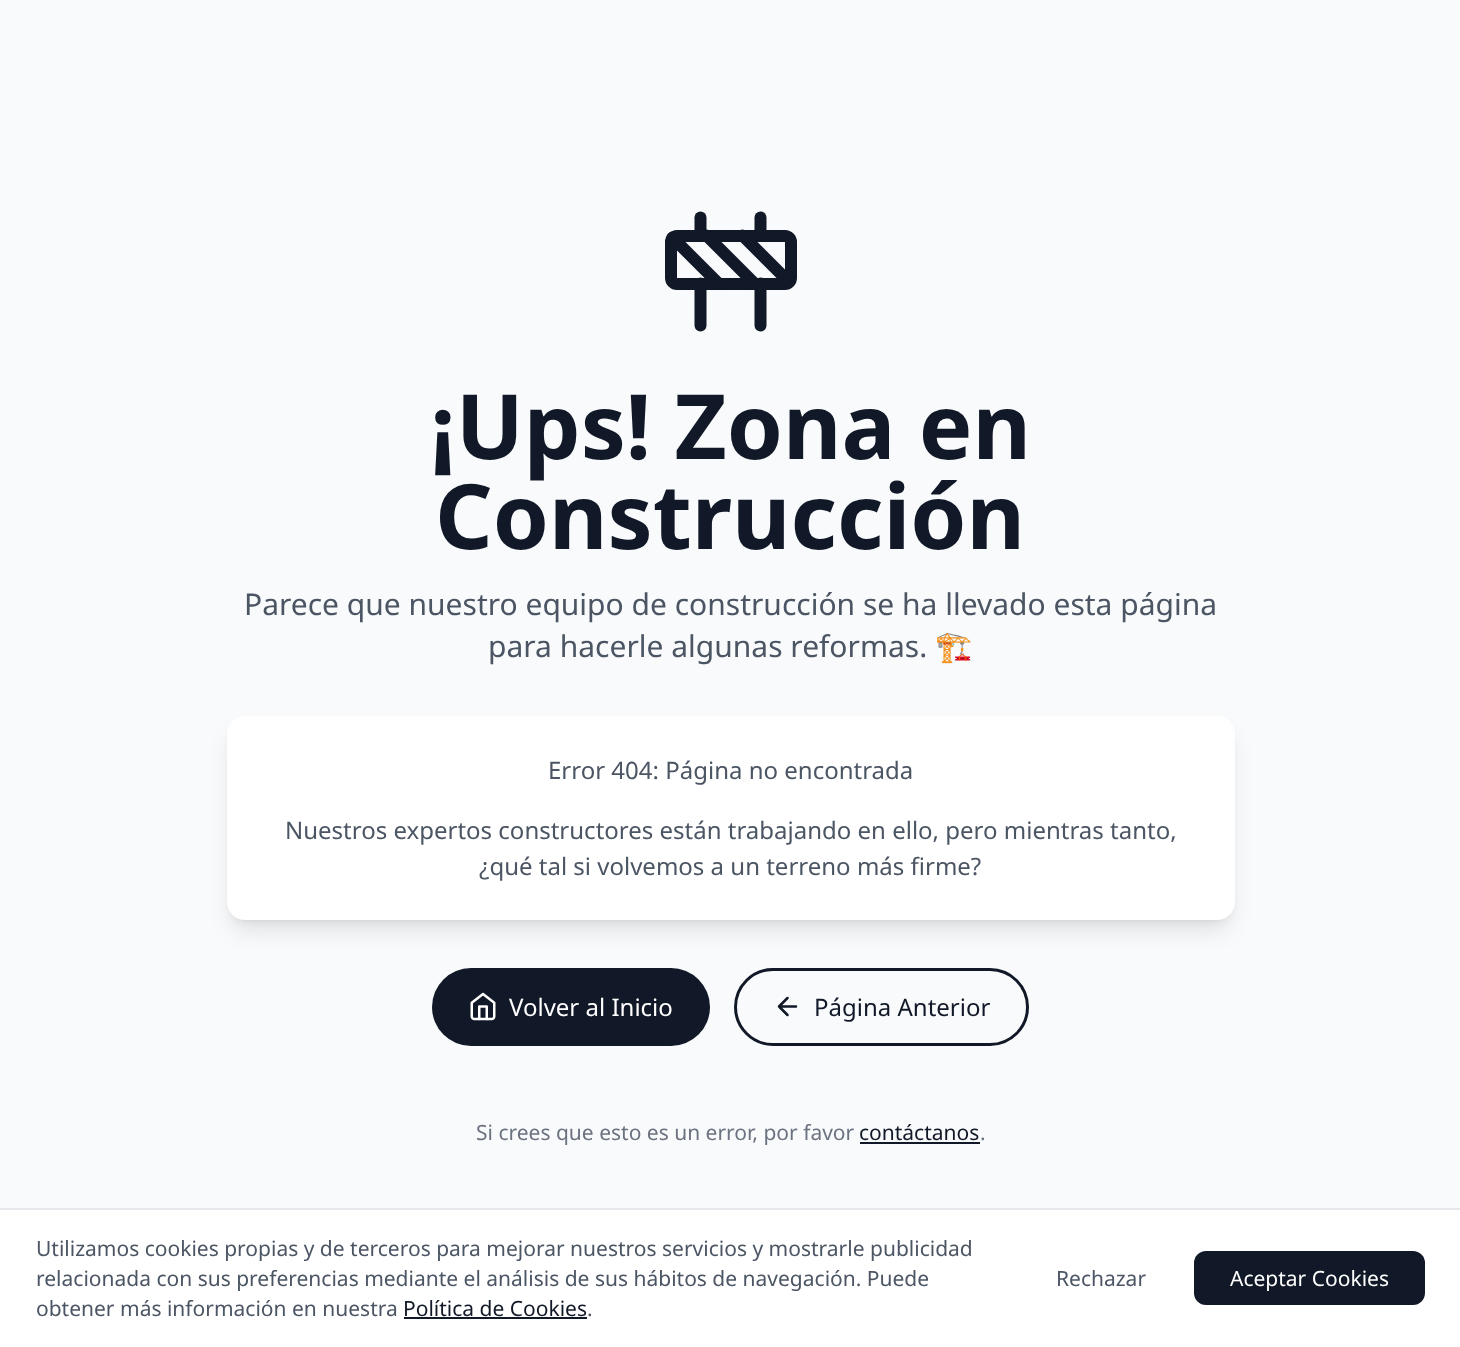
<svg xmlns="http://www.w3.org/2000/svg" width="1460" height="1347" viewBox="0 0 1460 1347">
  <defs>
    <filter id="blur1" x="-50%" y="-200%" width="200%" height="500%"><feGaussianBlur stdDeviation="4.5"/></filter>
    <filter id="blur2" x="-50%" y="-200%" width="200%" height="500%"><feGaussianBlur stdDeviation="11"/></filter>
  </defs>
  <rect width="100%" height="100%" fill="#f9fafb"/>
  <rect x="671" y="236" width="120" height="48" rx="6" fill="none" stroke="#111827" stroke-width="12"/>
  <path d="M760.5 283.5V325.5" fill="none" stroke="#111827" stroke-width="12" stroke-linecap="round" stroke-linejoin="round"/>
  <path d="M700.5 283.5V325.5" fill="none" stroke="#111827" stroke-width="12" stroke-linecap="round" stroke-linejoin="round"/>
  <path d="M760.5 217.5V235.5" fill="none" stroke="#111827" stroke-width="12" stroke-linecap="round" stroke-linejoin="round"/>
  <path d="M700.5 217.5V235.5" fill="none" stroke="#111827" stroke-width="12" stroke-linecap="round" stroke-linejoin="round"/>
  <path d="M718.5 283.5L672.5 237.5" fill="none" stroke="#111827" stroke-width="12" stroke-linecap="round" stroke-linejoin="round"/>
  <path d="M742.5 235.5L788.5 281.5" fill="none" stroke="#111827" stroke-width="12" stroke-linecap="round" stroke-linejoin="round"/>
  <path d="M706.5 235.5L754.5 283.5" fill="none" stroke="#111827" stroke-width="12" stroke-linecap="round" stroke-linejoin="round"/>
  <text x="430" y="459" font-family="Noto Sans" font-size="90" font-weight="bold" fill="#111827">¡Ups! Zona en</text>
  <text x="435" y="549" font-family="Noto Sans" font-size="90" font-weight="bold" fill="#111827">Construcción</text>
  <text x="244" y="615" font-family="Noto Sans" font-size="30" fill="#4b5563">Parece que nuestro equipo de construcción se ha llevado esta página</text>
  <text x="488" y="657" font-family="Noto Sans" font-size="30" fill="#4b5563">para hacerle algunas reformas.</text>
  <text x="935" y="657" font-family="Noto Color Emoji" font-size="30" fill="#4b5563">🏗️</text>
  <rect x="233" y="728" width="996" height="192" rx="12" fill="#000000" fill-opacity="0.1" filter="url(#blur1)"/>
  <rect x="231" y="735" width="999" height="195" rx="14" fill="#000000" fill-opacity="0.1" filter="url(#blur2)"/>
  <rect x="227" y="716" width="1008" height="204" rx="18" fill="#ffffff"/>
  <text x="548" y="779" font-family="Noto Sans" font-size="24" fill="#4b5563">Error 404: Página no encontrada</text>
  <text x="285" y="839" font-family="Noto Sans" font-size="24" fill="#4b5563">Nuestros expertos constructores están trabajando en ello, pero mientras tanto,</text>
  <text x="479" y="875" font-family="Noto Sans" font-size="24" fill="#4b5563">¿qué tal si volvemos a un terreno más firme?</text>
  <rect x="432" y="968" width="278" height="78" rx="39" fill="#111827"/>
  <image x="470" y="992" width="26" height="29" href="img1.png"/>
  <text x="509" y="1016" font-family="Noto Sans" font-size="24" fill="#ffffff">Volver al Inicio</text>
  <rect x="735.5" y="969.5" width="292" height="75" rx="37.5" fill="none" stroke="#111827" stroke-width="3"/>
  <path d="M787.5 1015L779 1006.5L787.5 998M796 1006.5H779" fill="none" stroke="#111827" stroke-width="2.5" stroke-linecap="round" stroke-linejoin="round"/>
  <text x="814" y="1016" font-family="Noto Sans" font-size="24" fill="#111827">Página Anterior</text>
  <text x="476" y="1140" font-family="Noto Sans" font-size="21" fill="#6b7280">Si crees que esto es un error, por favor</text>
  <text x="859" y="1140" font-family="Noto Sans" font-size="21" fill="#111827">contáctanos</text>
  <rect x="860" y="1142" width="120" height="2" fill="#111827"/>
  <text x="980" y="1140" font-family="Noto Sans" font-size="21" fill="#6b7280">.</text>
  <rect x="0" y="1210" width="1460" height="137" fill="#ffffff"/>
  <rect x="0" y="1208" width="1460" height="2" fill="#e5e7eb"/>
  <text x="36" y="1256" font-family="Noto Sans" font-size="21" fill="#4b5563">Utilizamos cookies propias y de terceros para mejorar nuestros servicios y mostrarle publicidad</text>
  <text x="36" y="1286" font-family="Noto Sans" font-size="21" fill="#4b5563">relacionada con sus preferencias mediante el análisis de sus hábitos de navegación. Puede</text>
  <text x="36" y="1316" font-family="Noto Sans" font-size="21" fill="#4b5563">obtener más información en nuestra</text>
  <text x="403" y="1316" font-family="Noto Sans" font-size="21" fill="#111827">Política de Cookies</text>
  <rect x="404" y="1317" width="183" height="2" fill="#111827"/>
  <text x="587" y="1316" font-family="Noto Sans" font-size="21" fill="#4b5563">.</text>
  <text x="1056" y="1286" font-family="Noto Sans" font-size="21" fill="#4b5563">Rechazar</text>
  <rect x="1194" y="1251" width="231" height="54" rx="12" fill="#111827"/>
  <text x="1230" y="1286" font-family="Noto Sans" font-size="21" fill="#ffffff">Aceptar Cookies</text>
</svg>
